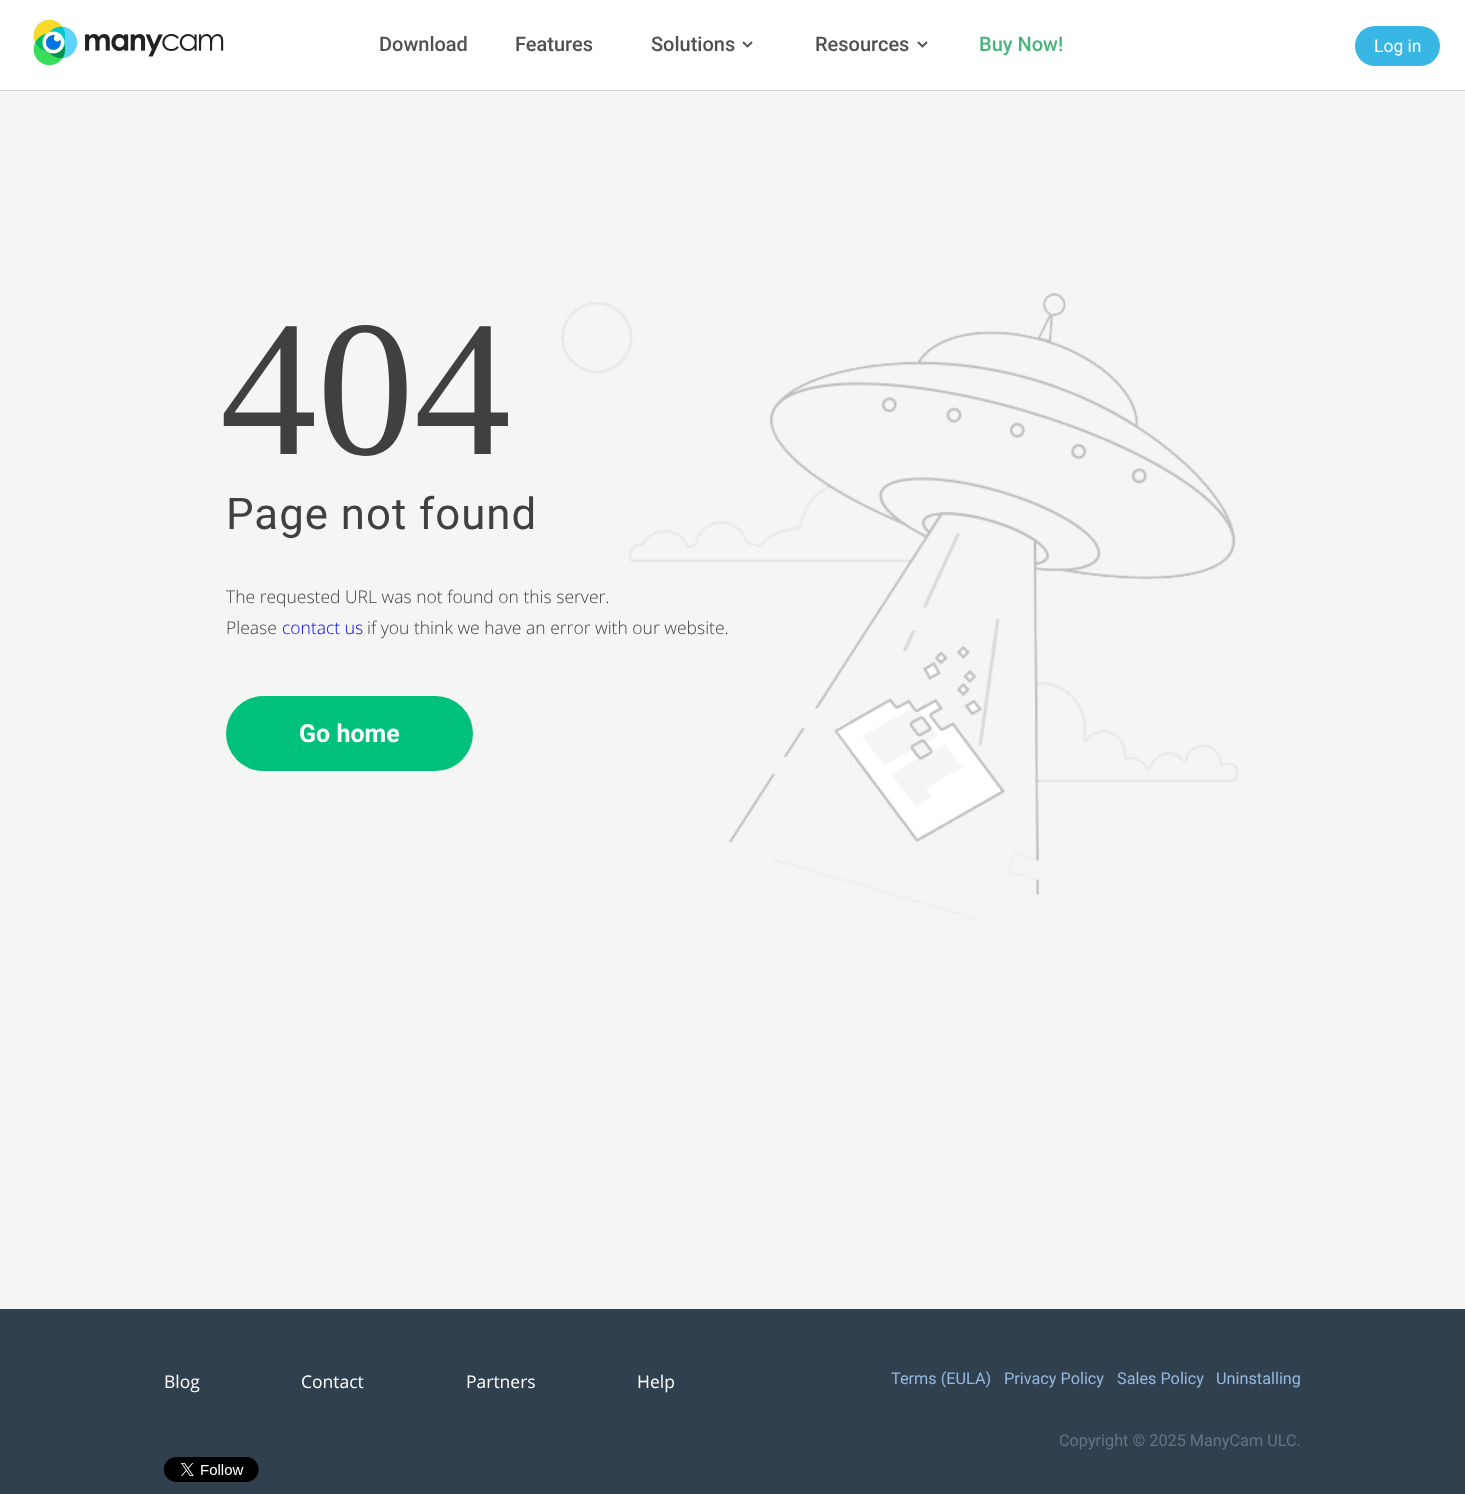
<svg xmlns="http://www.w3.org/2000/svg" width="1465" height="1494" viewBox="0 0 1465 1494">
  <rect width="100%" height="100%" fill="#f5f5f5"/>
  <rect x="0" y="0" width="1465" height="90" fill="#ffffff"/>
  <image x="33" y="20" width="191" height="45" href="img1.png"/>
  <text x="379" y="51" font-family="Roboto" font-size="20" font-weight="500" fill="#505050">Download</text>
  <text x="515" y="51" font-family="Roboto" font-size="20" font-weight="500" fill="#505050">Features</text>
  <text x="651" y="51" font-family="Roboto" font-size="20" font-weight="500" fill="#505050">Solutions</text>
  <path d="M752 42L747.5 46.5L743 42" fill="none" stroke="#505050" stroke-width="1.9"/>
  <text x="815" y="51" font-family="Roboto" font-size="20" font-weight="500" fill="#505050">Resources</text>
  <path d="M927 42L922.5 46.5L918 42" fill="none" stroke="#505050" stroke-width="1.9"/>
  <text x="979" y="51" font-family="Roboto" font-size="20" font-weight="500" fill="#48b47b">Buy Now!</text>
  <rect x="1355" y="26" width="85" height="40" rx="20" fill="#38b6e4"/>
  <text x="1374" y="52" font-family="Roboto" font-size="17.5" fill="#ffffff">Log in</text>
  <rect x="0" y="90" width="1465" height="1" fill="#d2d2d2"/>
  <text x="220" y="454" font-family="Liberation Serif" font-size="194" fill="#404040">404</text>
  <image x="561" y="293" width="678" height="627" href="img2.png"/>
  <text x="226" y="529" font-family="Roboto" font-size="43.75" letter-spacing="1" fill="#404040">Page not found</text>
  <text x="226" y="603" font-family="Open Sans" font-size="17.5" font-weight="300" fill="#404040">The requested URL was not found on this server.</text>
  <text x="226" y="634" font-family="Open Sans" font-size="17.5" font-weight="300" fill="#404040">Please</text>
  <text x="282" y="634" font-family="Open Sans" font-size="17.5" font-weight="300" fill="#0000ee">contact us</text>
  <text x="367" y="634" font-family="Open Sans" font-size="17.5" font-weight="300" fill="#404040">if you think we have an error with our website.</text>
  <rect x="226" y="696" width="247" height="75" rx="37.5" fill="#00c17b"/>
  <text x="299" y="742" font-family="Roboto" font-size="25" font-weight="bold" fill="#ffffff">Go home</text>
  <rect x="0" y="1309" width="1465" height="185" fill="#31404e"/>
  <text x="164" y="1388" font-family="Open Sans" font-size="17.5" fill="#ffffff">Blog</text>
  <text x="301" y="1388" font-family="Open Sans" font-size="17.5" fill="#ffffff">Contact</text>
  <text x="466" y="1388" font-family="Open Sans" font-size="17.5" fill="#ffffff">Partners</text>
  <text x="637" y="1388" font-family="Open Sans" font-size="17.5" fill="#ffffff">Help</text>
  <image x="163" y="1457" width="96" height="25" href="img3.png"/>
  <text x="891" y="1384" font-family="Roboto" font-size="16.25" fill="#93b9e0">Terms (EULA)</text>
  <text x="1004" y="1384" font-family="Roboto" font-size="16.25" fill="#93b9e0">Privacy Policy</text>
  <text x="1117" y="1384" font-family="Roboto" font-size="16.25" fill="#93b9e0">Sales Policy</text>
  <text x="1216" y="1384" font-family="Roboto" font-size="16.25" fill="#93b9e0">Uninstalling</text>
  <text x="1059" y="1446" font-family="Roboto" font-size="16.25" fill="#667486">Copyright © 2025 ManyCam ULC.</text>
</svg>
